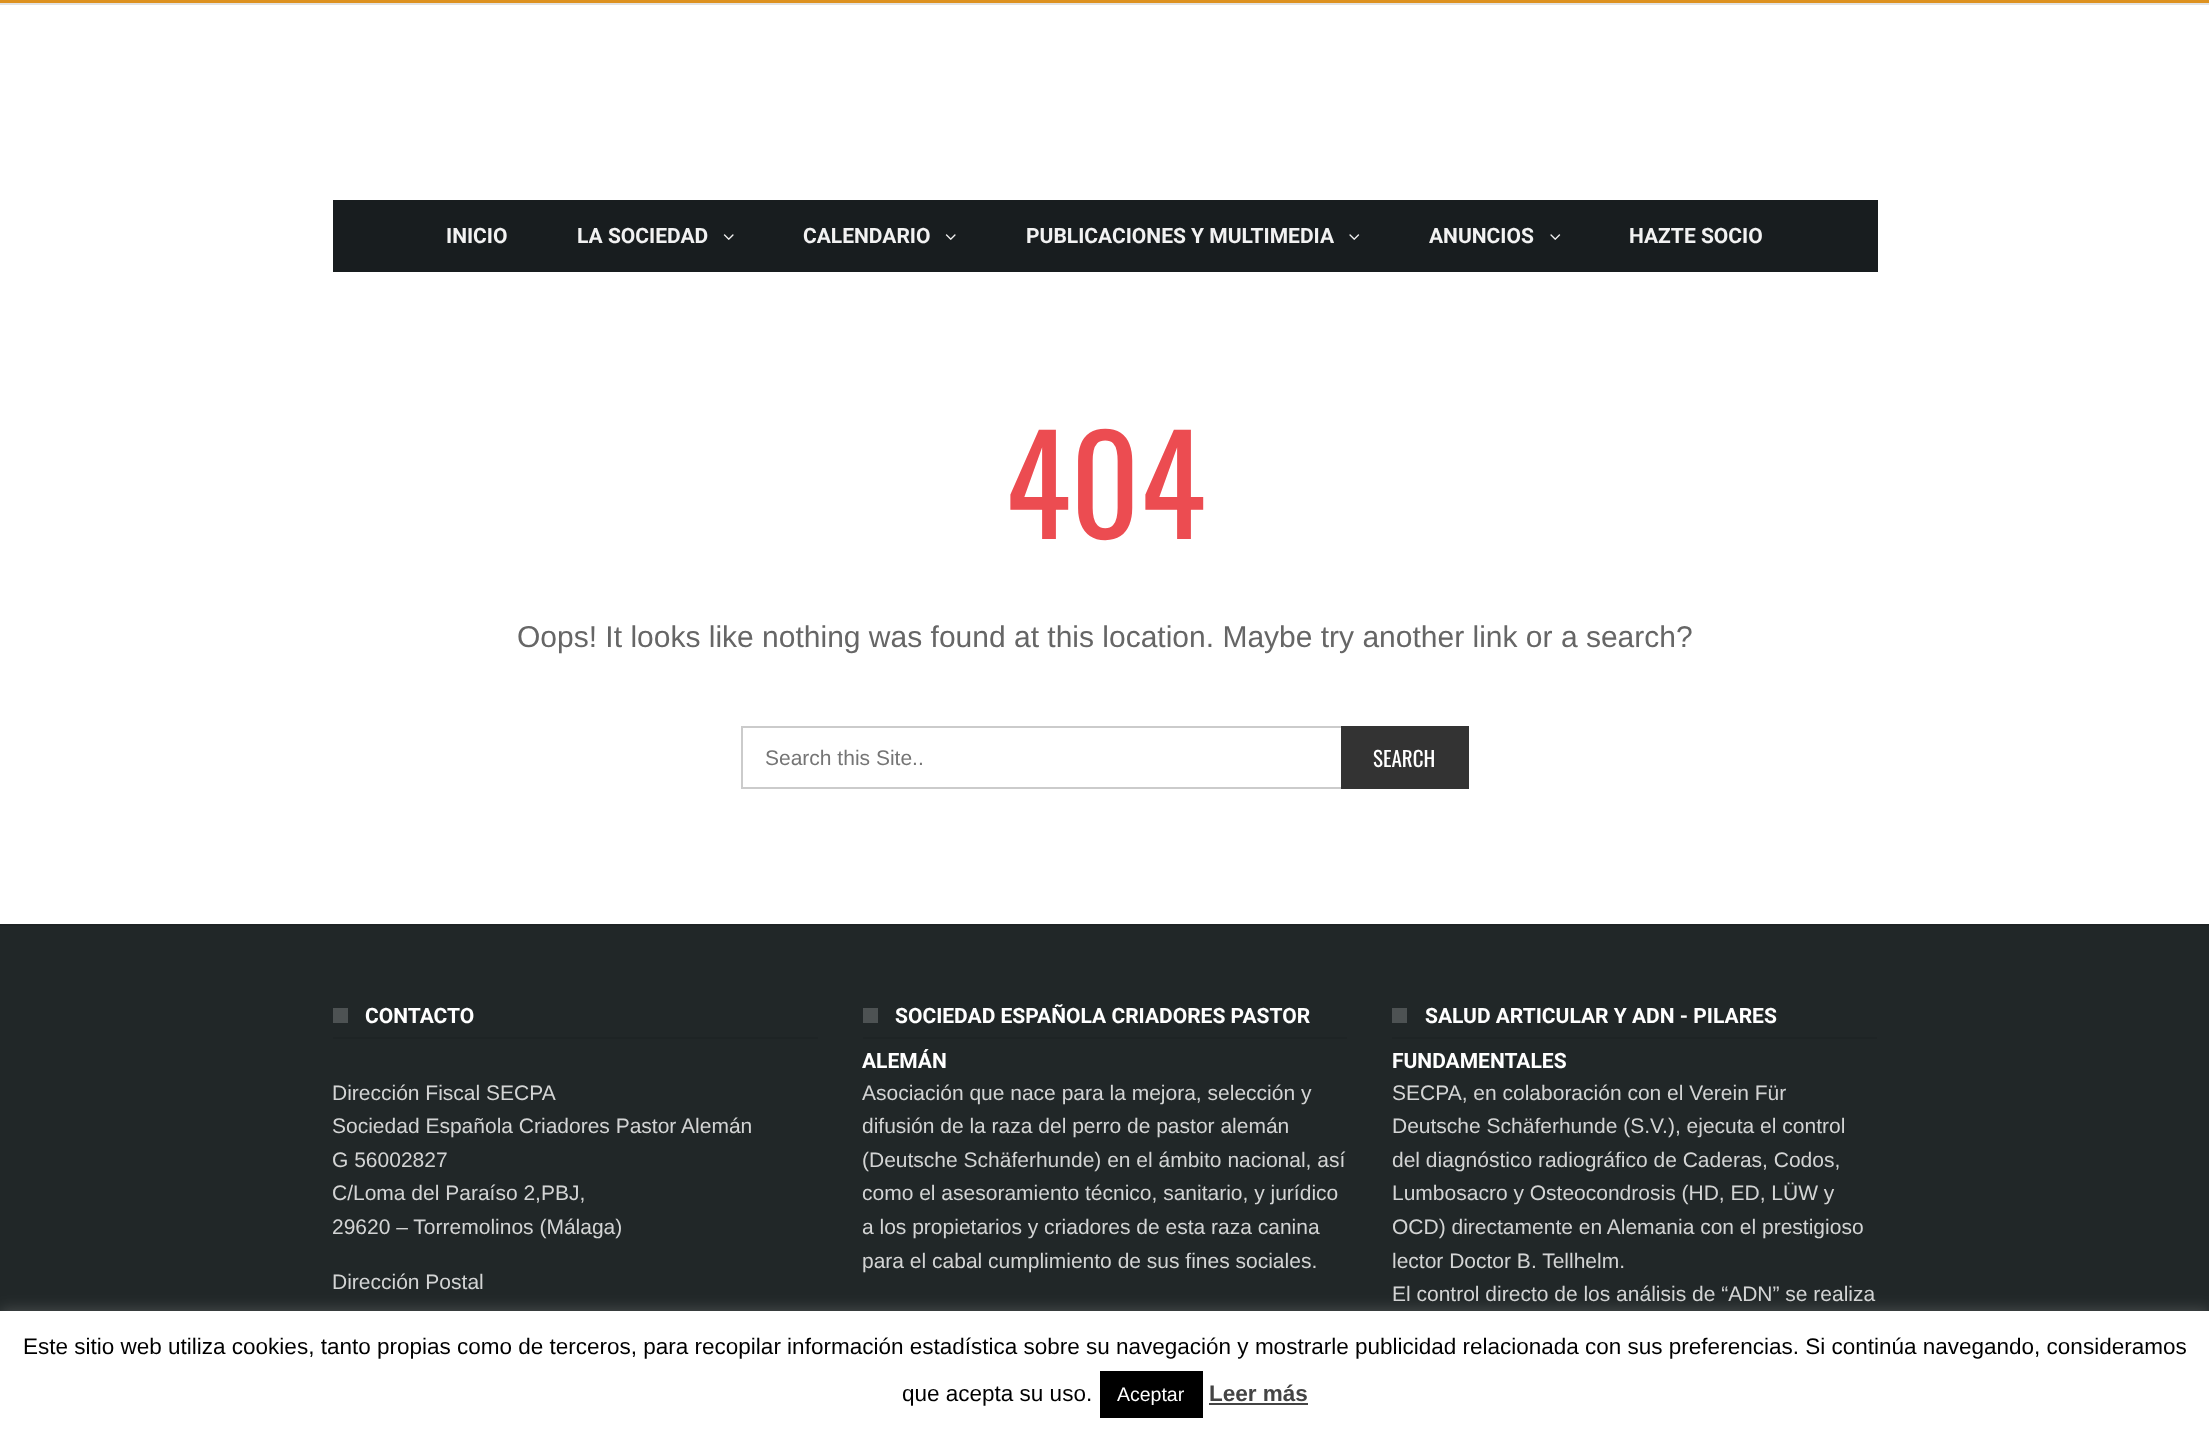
<svg xmlns="http://www.w3.org/2000/svg" width="2209" height="1435" viewBox="0 0 2209 1435">
  <defs>
    <filter id="blur1" x="-50%" y="-200%" width="200%" height="500%"><feGaussianBlur stdDeviation="7.5"/></filter>
  </defs>
  <rect width="100%" height="100%" fill="#ffffff"/>
  <rect x="0" y="0" width="2209" height="3" fill="#dd911f"/>
  <rect x="0" y="3" width="2209" height="2" fill="#e2e2e2"/>
  <rect x="333" y="200" width="1545" height="72" fill="#181d1f"/>
  <text x="446" y="243" font-family="Roboto" font-size="21" font-weight="bold" fill="#f2f2f2">INICIO</text>
  <text x="577" y="243" font-family="Roboto" font-size="21" font-weight="bold" fill="#f2f2f2">LA SOCIEDAD</text>
  <image x="723" y="234" width="11" height="6" href="img1.png"/>
  <text x="803" y="243" font-family="Roboto" font-size="21" font-weight="bold" fill="#f2f2f2">CALENDARIO</text>
  <image x="945" y="234" width="11" height="6" href="img1.png"/>
  <text x="1026" y="243" font-family="Roboto" font-size="21" font-weight="bold" fill="#f2f2f2">PUBLICACIONES Y MULTIMEDIA</text>
  <image x="1349" y="234" width="11" height="6" href="img2.png"/>
  <text x="1429" y="243" font-family="Roboto" font-size="21" font-weight="bold" fill="#f2f2f2">ANUNCIOS</text>
  <image x="1550" y="234" width="11" height="6" href="img2.png"/>
  <text x="1629" y="243" font-family="Roboto" font-size="21" font-weight="bold" fill="#f2f2f2">HAZTE SOCIO</text>
  <text x="1005" y="539" font-family="Oswald" font-size="135" fill="#ec4c51">404</text>
  <text x="517" y="647" font-family="Liberation Sans" font-size="30" fill="#666666">Oops! It looks like nothing was found at this location. Maybe try another link or a search?</text>
  <rect x="742" y="727" width="726" height="61" fill="none" stroke="#cbcbcb" stroke-width="2"/>
  <text x="765" y="765" font-family="Liberation Sans" font-size="21" fill="#757575">Search this Site..</text>
  <rect x="1341" y="726" width="128" height="63" fill="#333333"/>
  <text x="1373" y="767" font-family="Oswald" font-size="21" fill="#ffffff">SEARCH</text>
  <rect x="0" y="926" width="2209" height="385" fill="#212728"/>
  <rect x="0" y="924" width="2209" height="2" fill="#1e2324"/>
  <rect x="333" y="1037" width="485" height="2" fill="#1e2425"/>
  <rect x="333" y="1008" width="15" height="15" fill="#4d5253"/>
  <text x="365" y="1023" font-family="Roboto" font-size="21" font-weight="bold" fill="#ffffff">CONTACTO</text>
  <text x="332" y="1100" font-family="Liberation Sans" font-size="21" fill="#d3d4d4">Dirección Fiscal SECPA</text>
  <text x="332" y="1133" font-family="Liberation Sans" font-size="21" fill="#d3d4d4">Sociedad Española Criadores Pastor Alemán</text>
  <text x="332" y="1167" font-family="Liberation Sans" font-size="21" fill="#d3d4d4">G 56002827</text>
  <text x="332" y="1200" font-family="Liberation Sans" font-size="21" fill="#d3d4d4">C/Loma del Paraíso 2,PBJ,</text>
  <text x="332" y="1234" font-family="Liberation Sans" font-size="21" fill="#d3d4d4">29620 – Torremolinos (Málaga)</text>
  <text x="332" y="1289" font-family="Liberation Sans" font-size="21" fill="#d3d4d4">Dirección Postal</text>
  <rect x="863" y="1037" width="484" height="2" fill="#1e2425"/>
  <rect x="863" y="1008" width="15" height="15" fill="#4d5253"/>
  <text x="895" y="1023" font-family="Roboto" font-size="21" font-weight="bold" fill="#ffffff">SOCIEDAD ESPAÑOLA CRIADORES PASTOR</text>
  <text x="862" y="1068" font-family="Roboto" font-size="21" font-weight="bold" fill="#ffffff">ALEMÁN</text>
  <text x="862" y="1100" font-family="Liberation Sans" font-size="21" fill="#d3d4d4">Asociación que nace para la mejora, selección y</text>
  <text x="862" y="1133" font-family="Liberation Sans" font-size="21" fill="#d3d4d4">difusión de la raza del perro de pastor alemán</text>
  <text x="862" y="1167" font-family="Liberation Sans" font-size="21" fill="#d3d4d4">(Deutsche Schäferhunde) en el ámbito nacional, así</text>
  <text x="862" y="1200" font-family="Liberation Sans" font-size="21" fill="#d3d4d4">como el asesoramiento técnico, sanitario, y jurídico</text>
  <text x="862" y="1234" font-family="Liberation Sans" font-size="21" fill="#d3d4d4">a los propietarios y criadores de esta raza canina</text>
  <text x="862" y="1268" font-family="Liberation Sans" font-size="21" fill="#d3d4d4">para el cabal cumplimiento de sus fines sociales.</text>
  <rect x="1392" y="1037" width="485" height="2" fill="#1e2425"/>
  <rect x="1392" y="1008" width="15" height="15" fill="#4d5253"/>
  <text x="1425" y="1023" font-family="Roboto" font-size="21" font-weight="bold" fill="#ffffff">SALUD ARTICULAR Y ADN - PILARES</text>
  <text x="1392" y="1068" font-family="Roboto" font-size="21" font-weight="bold" fill="#ffffff">FUNDAMENTALES</text>
  <text x="1392" y="1100" font-family="Liberation Sans" font-size="21" fill="#d3d4d4">SECPA, en colaboración con el Verein Für</text>
  <text x="1392" y="1133" font-family="Liberation Sans" font-size="21" fill="#d3d4d4">Deutsche Schäferhunde (S.V.), ejecuta el control</text>
  <text x="1392" y="1167" font-family="Liberation Sans" font-size="21" fill="#d3d4d4">del diagnóstico radiográfico de Caderas, Codos,</text>
  <text x="1392" y="1200" font-family="Liberation Sans" font-size="21" fill="#d3d4d4">Lumbosacro y Osteocondrosis (HD, ED, LÜW y</text>
  <text x="1392" y="1234" font-family="Liberation Sans" font-size="21" fill="#d3d4d4">OCD) directamente en Alemania con el prestigioso</text>
  <text x="1392" y="1268" font-family="Liberation Sans" font-size="21" fill="#d3d4d4">lector Doctor B. Tellhelm.</text>
  <text x="1392" y="1301" font-family="Liberation Sans" font-size="21" fill="#d3d4d4">El control directo de los análisis de “ADN” se realiza</text>
  <rect x="0" y="1310" width="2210" height="124" fill="#acabab" fill-opacity="0.3" filter="url(#blur1)"/>
  <rect x="0" y="1311" width="2209" height="124" fill="#ffffff"/>
  <text x="23" y="1354" font-family="Liberation Sans" font-size="22.5" fill="#000000">Este sitio web utiliza cookies, tanto propias como de terceros, para recopilar información estadística sobre su navegación y mostrarle publicidad relacionada con sus preferencias. Si continúa navegando, consideramos</text>
  <text x="902" y="1401" font-family="Liberation Sans" font-size="22.5" fill="#000000">que acepta su uso.</text>
  <rect x="1100" y="1371" width="103" height="47" fill="#000000"/>
  <text x="1117" y="1401" font-family="Liberation Sans" font-size="19.5" fill="#ffffff">Aceptar</text>
  <text x="1209" y="1401" font-family="Liberation Sans" font-size="22.5" font-weight="bold" fill="#444444">Leer más</text>
  <rect x="1209" y="1403" width="99" height="2" fill="#444444"/>
</svg>
